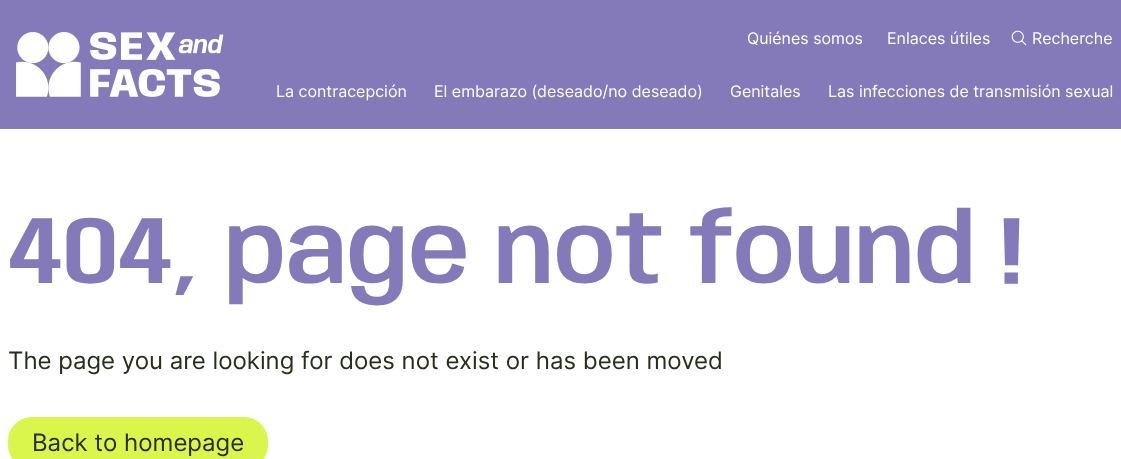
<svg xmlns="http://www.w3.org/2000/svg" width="1121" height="459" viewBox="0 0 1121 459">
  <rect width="100%" height="100%" fill="#ffffff"/>
  <rect x="0" y="0" width="1121" height="129" fill="#847ab9"/>
  <image x="16" y="32" width="208" height="65" href="img1.png"/>
  <text x="747" y="44" font-family="Inter" font-size="16" font-style="italic" fill="#ffffff">Quiénes somos</text>
  <text x="887" y="44" font-family="Inter" font-size="16" font-style="italic" fill="#ffffff">Enlaces útiles</text>
  <image x="1011" y="30" width="16" height="16" href="img2.png"/>
  <text x="1032" y="44" font-family="Inter" font-size="16" font-style="italic" fill="#ffffff">Recherche</text>
  <text x="276" y="97" font-family="Inter" font-size="16" font-style="italic" fill="#ffffff">La contracepción</text>
  <text x="434" y="97" font-family="Inter" font-size="16" font-style="italic" fill="#ffffff">El embarazo (deseado/no deseado)</text>
  <text x="730" y="97" font-family="Inter" font-size="16" font-style="italic" fill="#ffffff">Genitales</text>
  <text x="828" y="97" font-family="Inter" font-size="16" font-style="italic" fill="#ffffff">Las infecciones de transmisión sexual</text>
  <text x="8" y="283" font-family="Anybody" font-size="96" font-weight="600" font-style="italic" fill="#847ab9">404, page not found !</text>
  <text x="8" y="369" font-family="Inter" font-size="24" font-style="italic" fill="#282e1c">The page you are looking for does not exist or has been moved</text>
  <rect x="8" y="417" width="260" height="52" rx="24" fill="#daf64c"/>
  <text x="32" y="451" font-family="Inter" font-size="24" font-style="italic" fill="#282e1c">Back to homepage</text>
</svg>
